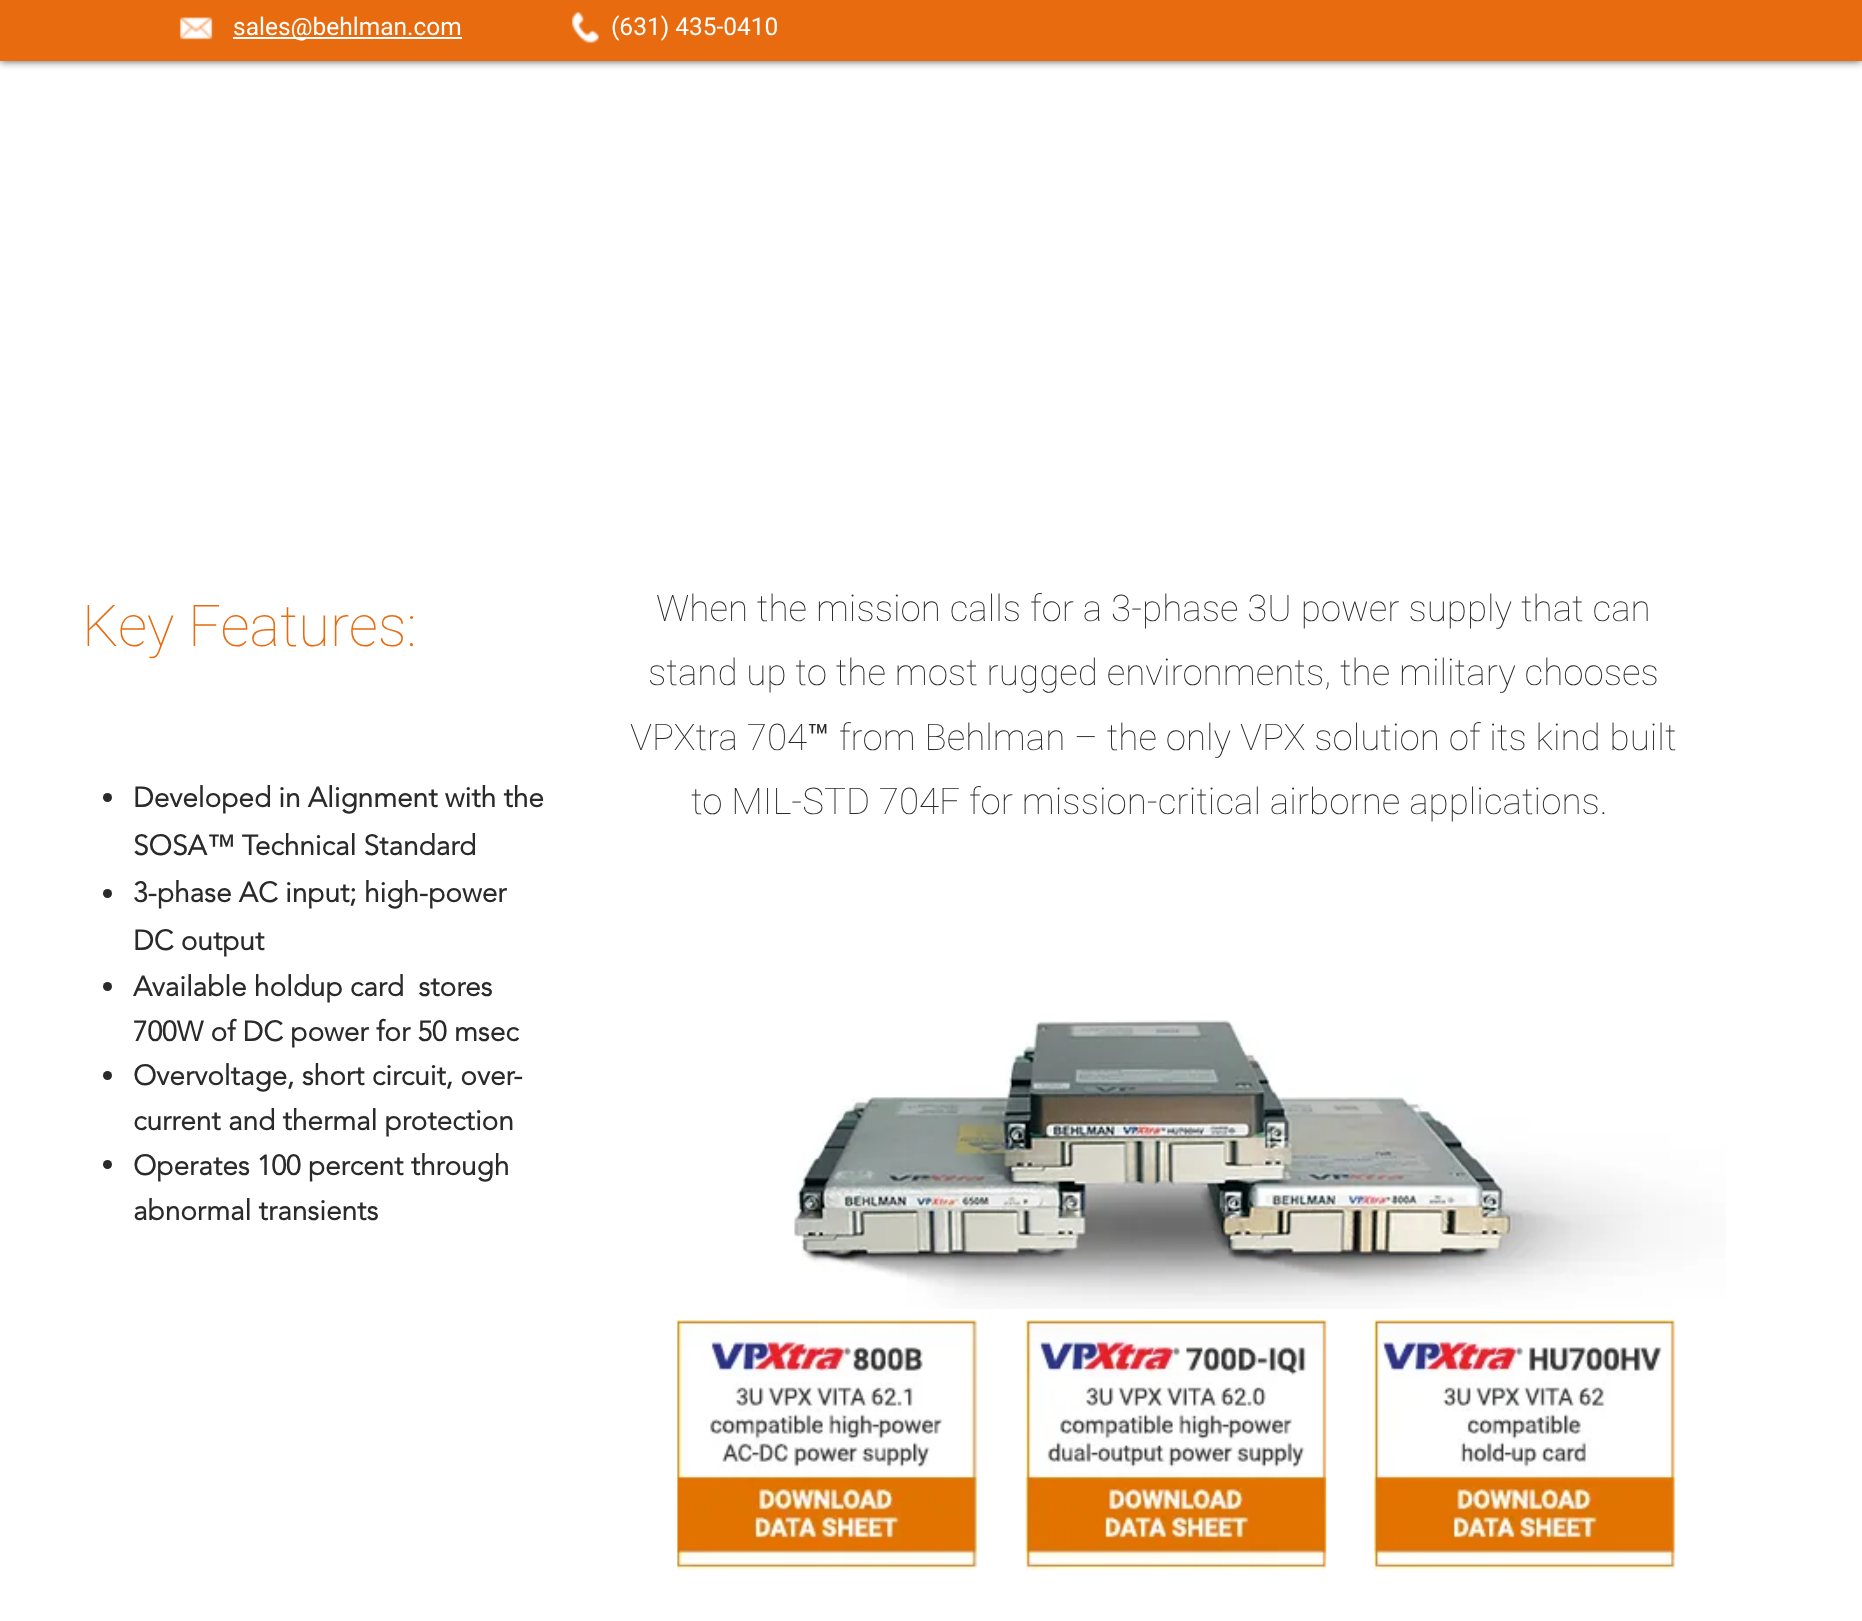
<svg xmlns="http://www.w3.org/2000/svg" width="1862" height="1621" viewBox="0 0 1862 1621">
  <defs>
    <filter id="blur1" x="-50%" y="-200%" width="200%" height="500%"><feGaussianBlur stdDeviation="4.5"/></filter>
  </defs>
  <rect width="100%" height="100%" fill="#ffffff"/>
  <rect x="0" y="0" width="1862" height="61" fill="#000000" fill-opacity="0.7" filter="url(#blur1)"/>
  <rect x="0" y="0" width="1862" height="61" fill="#e86b0f"/>
  <image x="179" y="17" width="34" height="23" href="img1.png"/>
  <rect x="233" y="37" width="229" height="2" fill="#ffffff"/>
  <text x="233" y="35" font-family="Roboto" font-size="24.5" fill="#ffffff">sales@behlman.com</text>
  <image x="571" y="11" width="28" height="33" href="img2.png"/>
  <text x="611" y="35" font-family="Roboto" font-size="24.5" fill="#ffffff">(631) 435-0410</text>
  <text x="82" y="646" font-family="Roboto" font-size="57.75" font-weight="100" fill="#e86b0f">Key Features:</text>
  <circle cx="107.5" cy="797.5" r="4.5" fill="#2a2a2a"/>
  <text x="133" y="807" font-family="'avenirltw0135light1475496'" font-size="28" font-weight="bold" fill="#2a2a2a">Developed in Alignment with the</text>
  <text x="133" y="855" font-family="'avenirltw0135light1475496'" font-size="28" font-weight="bold" fill="#2a2a2a">SOSA™ Technical Standard</text>
  <circle cx="107.5" cy="893.5" r="4.5" fill="#2a2a2a"/>
  <text x="133" y="902" font-family="'avenirltw0135light1475496'" font-size="28" font-weight="bold" fill="#2a2a2a">3-phase AC input; high-power</text>
  <text x="133" y="950" font-family="'avenirltw0135light1475496'" font-size="28" font-weight="bold" fill="#2a2a2a">DC output</text>
  <circle cx="107.5" cy="986.5" r="4.5" fill="#2a2a2a"/>
  <text x="133" y="996" font-family="'avenirltw0135light1475496'" font-size="28" font-weight="bold" fill="#2a2a2a" xml:space="preserve">Available holdup card  stores</text>
  <text x="133" y="1041" font-family="'avenirltw0135light1475496'" font-size="28" font-weight="bold" fill="#2a2a2a">700W of DC power for 50 msec</text>
  <circle cx="107.5" cy="1075.5" r="4.5" fill="#2a2a2a"/>
  <text x="133" y="1085" font-family="'avenirltw0135light1475496'" font-size="28" font-weight="bold" fill="#2a2a2a">Overvoltage, short circuit, over-</text>
  <text x="133" y="1130" font-family="'avenirltw0135light1475496'" font-size="28" font-weight="bold" fill="#2a2a2a">current and thermal protection</text>
  <circle cx="107.5" cy="1164.5" r="4.5" fill="#2a2a2a"/>
  <text x="133" y="1175" font-family="'avenirltw0135light1475496'" font-size="28" font-weight="bold" fill="#2a2a2a">Operates 100 percent through</text>
  <text x="133" y="1220" font-family="'avenirltw0135light1475496'" font-size="28" font-weight="bold" fill="#2a2a2a">abnormal transients</text>
  <text x="656" y="621" font-family="Roboto" font-size="36.75" font-weight="100" fill="#2a2a2a">When the mission calls for a 3-phase 3U power supply that can</text>
  <text x="648" y="685" font-family="Roboto" font-size="36.75" font-weight="100" fill="#2a2a2a">stand up to the most rugged environments, the military chooses</text>
  <text x="630" y="750" font-family="Roboto" font-size="36.75" font-weight="100" fill="#2a2a2a">VPXtra 704</text>
  <text x="807" y="750" font-family="Roboto" font-size="36.75" fill="#2a2a2a">™</text>
  <text x="839" y="750" font-family="Roboto" font-size="36.75" font-weight="100" fill="#2a2a2a">from Behlman – the only VPX solution of its kind built</text>
  <text x="691" y="814" font-family="Roboto" font-size="36.75" font-weight="100" fill="#2a2a2a">to MIL-STD 704F for mission-critical airborne applications.</text>
  <image x="794" y="1020" width="932" height="289" href="img3.png"/>
  <image x="677" y="1319" width="302" height="251" href="img4.png"/>
  <image x="1025" y="1319" width="302" height="251" href="img5.png"/>
  <image x="1373" y="1319" width="302" height="251" href="img6.png"/>
</svg>
